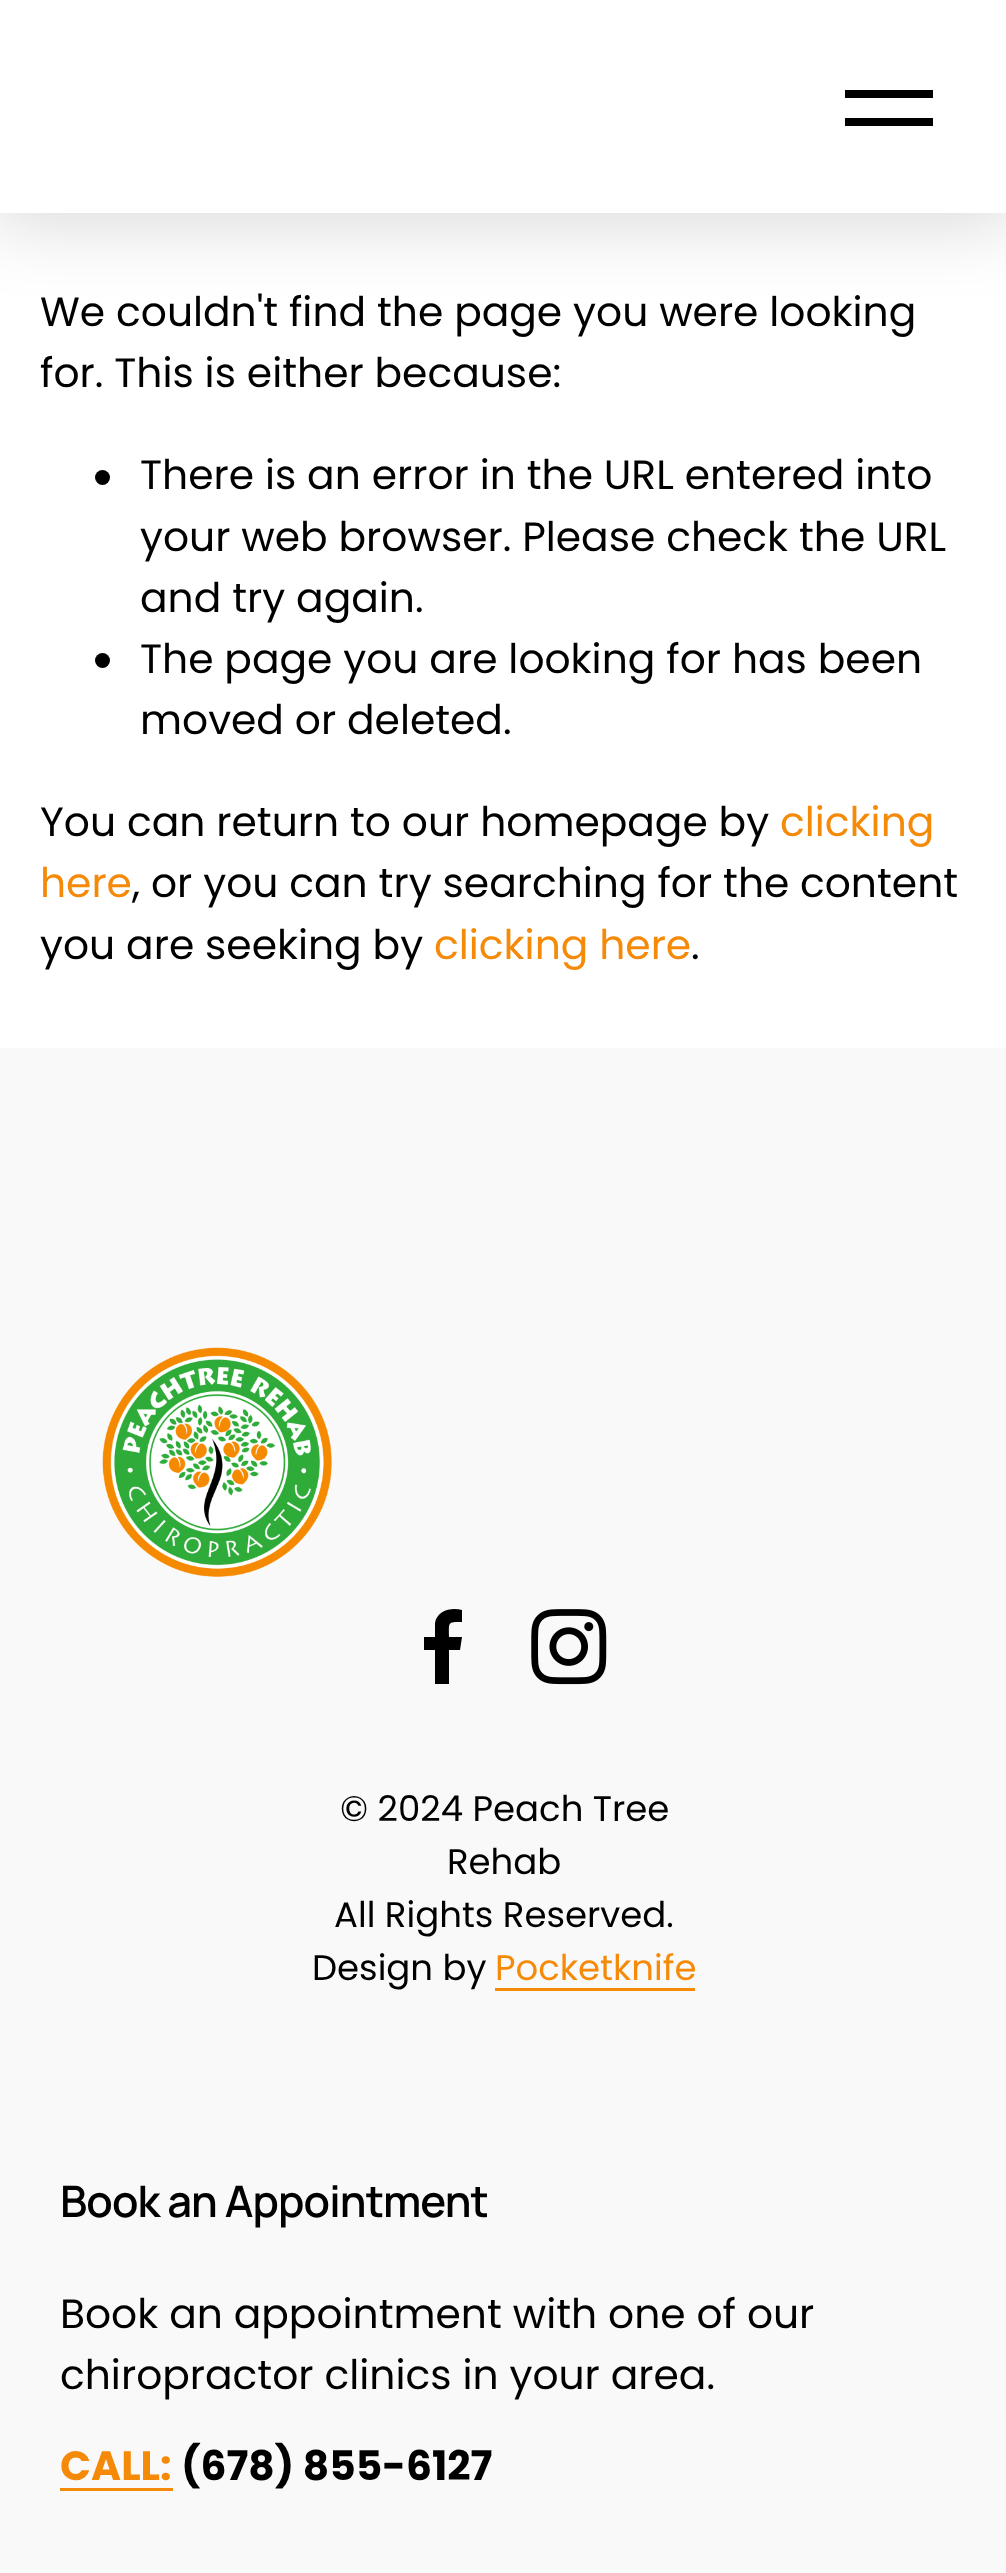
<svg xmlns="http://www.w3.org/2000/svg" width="1006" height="2573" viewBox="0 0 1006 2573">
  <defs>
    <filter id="blur1" x="-50%" y="-200%" width="200%" height="500%"><feGaussianBlur stdDeviation="37.5"/></filter>
  </defs>
  <rect width="100%" height="100%" fill="#ffffff"/>
  <rect x="-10" y="-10" width="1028" height="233" fill="#000000" fill-opacity="0.15" filter="url(#blur1)"/>
  <rect x="0" y="0" width="1006" height="213" fill="#ffffff"/>
  <rect x="845" y="90" width="88" height="8" fill="#000000"/>
  <rect x="845" y="118" width="88" height="8" fill="#000000"/>
  <text x="40" y="326" font-family="Poppins" font-size="40.8" fill="#000000">We couldn't find the page you were looking</text>
  <text x="40" y="387" font-family="Poppins" font-size="40.8" fill="#000000">for. This is either because:</text>
  <circle cx="102.5" cy="477.5" r="7.5" fill="#000000"/>
  <text x="140" y="489" font-family="Poppins" font-size="40.8" fill="#000000">There is an error in the URL entered into</text>
  <text x="140" y="551" font-family="Poppins" font-size="40.8" fill="#000000">your web browser. Please check the URL</text>
  <text x="140" y="612" font-family="Poppins" font-size="40.8" fill="#000000">and try again.</text>
  <circle cx="102.5" cy="660.5" r="7.5" fill="#000000"/>
  <text x="140" y="673" font-family="Poppins" font-size="40.8" fill="#000000">The page you are looking for has been</text>
  <text x="140" y="734" font-family="Poppins" font-size="40.8" fill="#000000">moved or deleted.</text>
  <text x="40" y="836" font-family="Poppins" font-size="40.8" fill="#000000">You can return to our homepage by</text>
  <text x="780" y="836" font-family="Poppins" font-size="40.8" fill="#f58a09">clicking</text>
  <text x="40" y="897" font-family="Poppins" font-size="40.8" fill="#f58a09">here</text>
  <text x="132" y="897" font-family="Poppins" font-size="40.8" fill="#000000">, or you can try searching for the</text>
  <text x="800" y="897" font-family="Poppins" font-size="40.8" fill="#000000">content</text>
  <text x="40" y="959" font-family="Poppins" font-size="40.8" fill="#000000">you are seeking by</text>
  <text x="434" y="959" font-family="Poppins" font-size="40.8" fill="#f58a09">clicking here</text>
  <text x="691" y="959" font-family="Poppins" font-size="40.8" fill="#000000">.</text>
  <rect x="0" y="1048" width="1006" height="1525" fill="#f9f9f9"/>
  <image x="102" y="1347" width="230" height="230" href="img1.png"/>
  <path d="M449 1684V1650H460L462 1637H449C449 1622 447 1622 462 1622V1610C452 1607 437 1610 435 1623V1637H424V1650H435V1684Z" fill="#000000"/>
  <image x="531" y="1609" width="76" height="76" href="img2.png"/>
  <text x="340" y="1821" font-family="Poppins" font-size="35.5" fill="#000000">© 2024 Peach Tree</text>
  <text x="447" y="1874" font-family="Poppins" font-size="35.5" fill="#000000">Rehab</text>
  <text x="334" y="1927" font-family="Poppins" font-size="35.5" fill="#000000">All Rights Reserved.</text>
  <text x="312" y="1980" font-family="Poppins" font-size="35.5" fill="#000000">Design by</text>
  <text x="495" y="1980" font-family="Poppins" font-size="35.5" fill="#f58a09">Pocketknife</text>
  <rect x="495" y="1988" width="200" height="3" fill="#f58a09"/>
  <text x="60" y="2217" font-family="Manrope" font-size="43.5" font-weight="600" letter-spacing="-0.9" fill="#000000">Book an Appointment</text>
  <text x="60" y="2328" font-family="Poppins" font-size="40.8" fill="#000000">Book an appointment with one of our</text>
  <text x="60" y="2389" font-family="Poppins" font-size="40.8" fill="#000000">chiropractor clinics in your area.</text>
  <text x="60" y="2480" font-family="Poppins" font-size="40.8" font-weight="bold" fill="#f58a09">CALL:</text>
  <rect x="60" y="2488" width="113" height="3" fill="#f58a09"/>
  <text x="181" y="2480" font-family="Poppins" font-size="40.8" font-weight="bold" fill="#000000">(678) 855-6127</text>
</svg>
